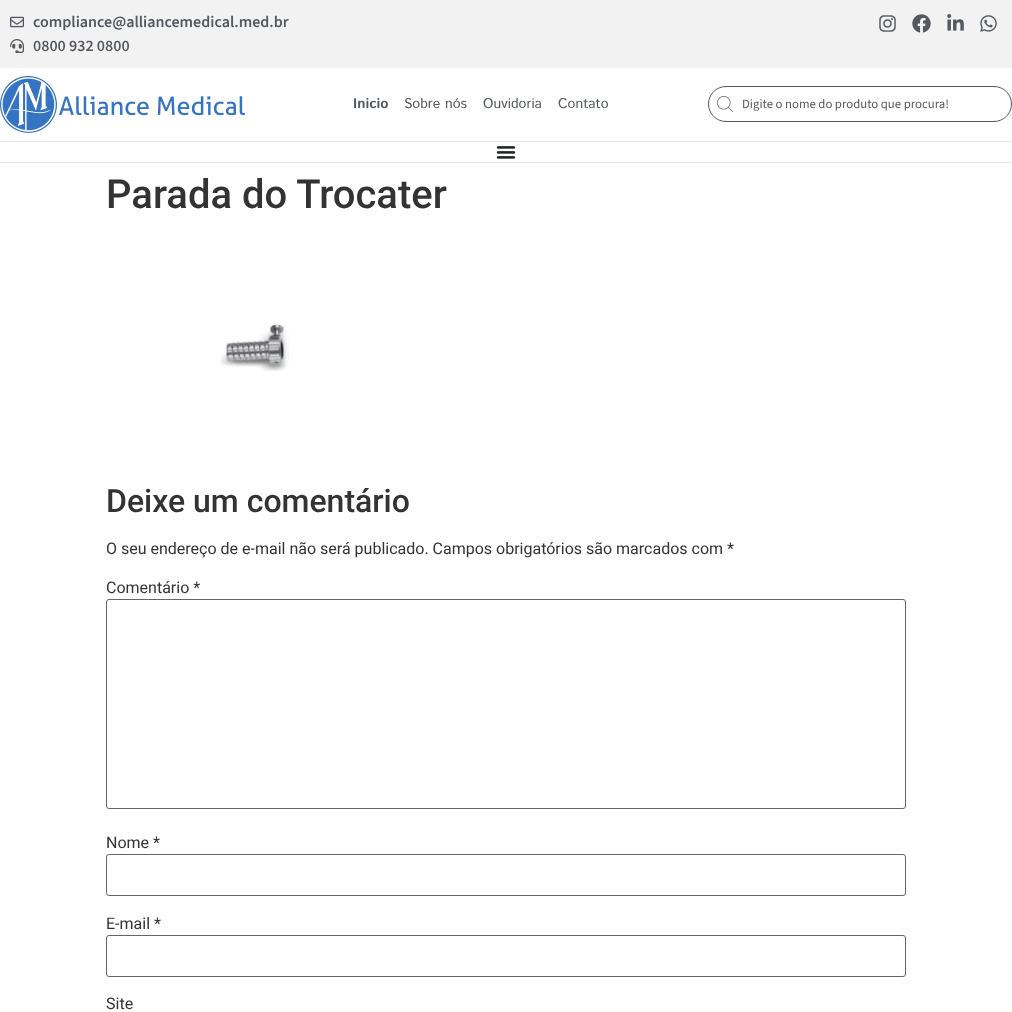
<svg xmlns="http://www.w3.org/2000/svg" width="1012" height="1012" viewBox="0 0 1012 1012">
  <rect width="100%" height="100%" fill="#ffffff"/>
  <rect x="0" y="0" width="1012" height="68" fill="#f2f2f2"/>
  <image x="10" y="16" width="14" height="12" href="img1.png"/>
  <text x="33" y="27" font-family="'Source Sans 3'" font-size="16" font-weight="600" fill="#54595f">compliance@alliancemedical.med.br</text>
  <image x="10" y="39" width="14" height="14" href="img2.png"/>
  <text x="33" y="51" font-family="'Source Sans 3'" font-size="16" font-weight="600" fill="#54595f">0800 932 0800</text>
  <image x="879" y="15" width="17" height="17" href="img3.png"/>
  <image x="912" y="14" width="19" height="19" href="img4.png"/>
  <image x="947" y="14" width="17" height="17" href="img5.png"/>
  <image x="980" y="15" width="17" height="17" href="img6.png"/>
  <rect x="0" y="141" width="1012" height="1" fill="#ebebeb"/>
  <image x="0" y="76" width="245" height="57" href="img7.png"/>
  <text x="353" y="108" font-family="Istok Web" font-size="14" font-weight="bold" fill="#54595f">Inicio</text>
  <text x="404" y="108" font-family="Istok Web" font-size="14" fill="#54595f">Sobre nós</text>
  <text x="483" y="108" font-family="Istok Web" font-size="14" fill="#54595f">Ouvidoria</text>
  <text x="558" y="108" font-family="Istok Web" font-size="14" fill="#54595f">Contato</text>
  <rect x="708.5" y="86.5" width="303" height="35" rx="17.5" fill="none" stroke="#54595f"/>
  <image x="717" y="96" width="16" height="16" href="img8.png"/>
  <text x="742" y="108" font-family="'Source Sans 3'" font-size="12.75" fill="#54595f">Digite o nome do produto que procura!</text>
  <rect x="0" y="162" width="1012" height="1" fill="#ebebeb"/>
  <image x="496" y="146" width="20" height="13" href="img9.png"/>
  <text x="106" y="208" font-family="Roboto" font-size="40" font-weight="500" fill="#333333">Parada do Trocater</text>
  <image x="220" y="323" width="70" height="48" href="img10.png"/>
  <text x="106" y="512" font-family="Roboto" font-size="32" font-weight="500" fill="#333333">Deixe um comentário</text>
  <text x="106" y="554" font-family="Roboto" font-size="16" fill="#333333">O seu endereço de e-mail não será publicado. Campos obrigatórios são marcados com *</text>
  <text x="106" y="593" font-family="Roboto" font-size="16" fill="#333333">Comentário *</text>
  <rect x="106.5" y="599.5" width="799" height="209" rx="2.5" fill="none" stroke="#666666"/>
  <text x="106" y="848" font-family="Roboto" font-size="16" fill="#333333">Nome *</text>
  <rect x="106.5" y="854.5" width="799" height="41" rx="2.5" fill="none" stroke="#666666"/>
  <text x="106" y="929" font-family="Roboto" font-size="16" fill="#333333">E-mail *</text>
  <rect x="106.5" y="935.5" width="799" height="41" rx="2.5" fill="none" stroke="#666666"/>
  <text x="106" y="1009" font-family="Roboto" font-size="16" fill="#333333">Site</text>
</svg>
